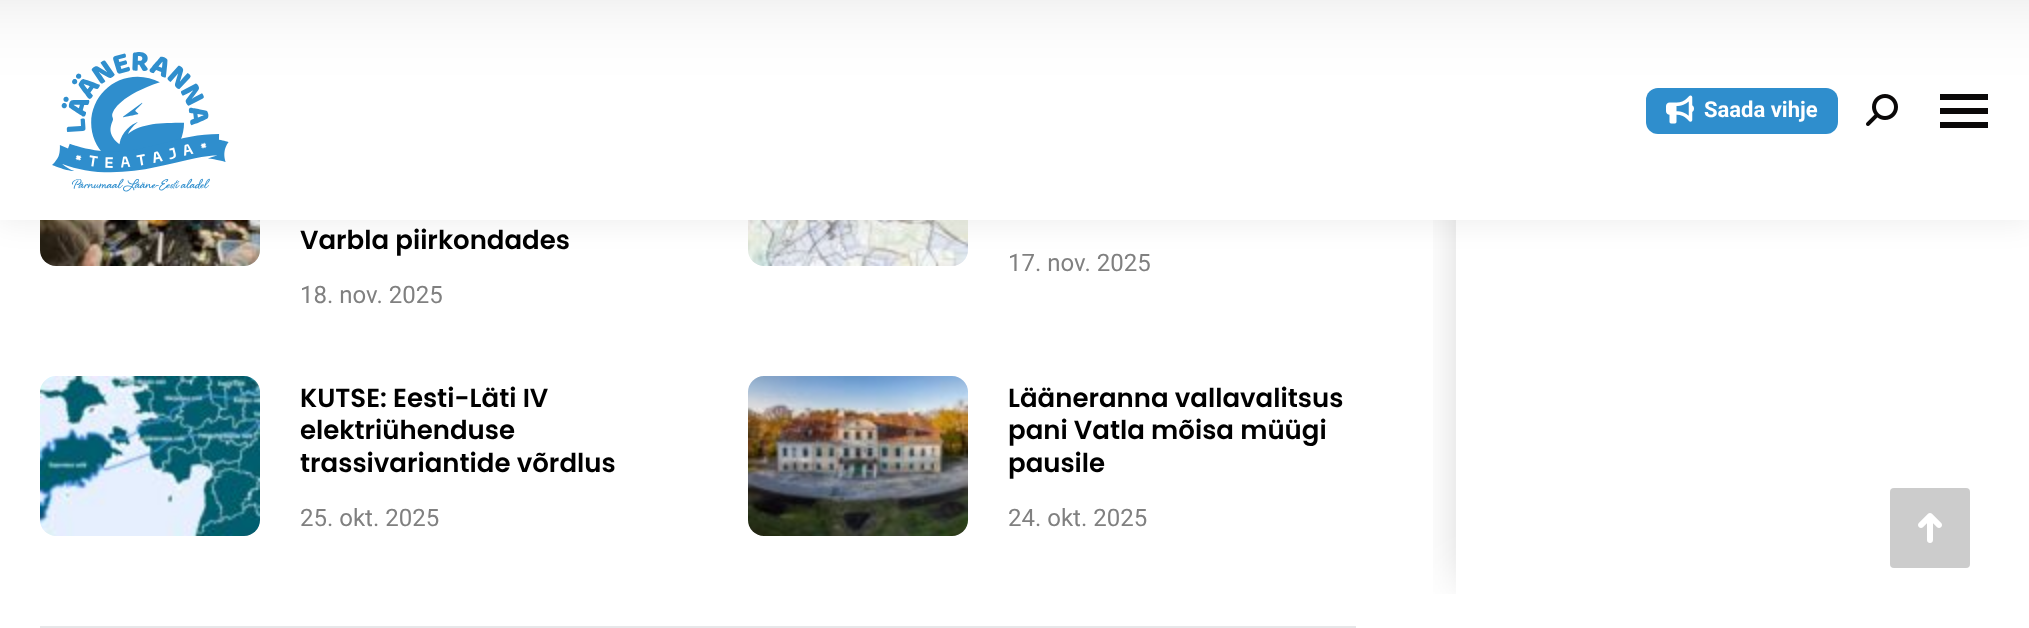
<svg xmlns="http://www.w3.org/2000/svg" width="2029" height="628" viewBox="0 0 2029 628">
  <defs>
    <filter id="blur1" x="-50%" y="-200%" width="200%" height="500%"><feGaussianBlur stdDeviation="15"/></filter>
    <clipPath id="clip1"><rect x="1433" y="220" width="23" height="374"/></clipPath>
    <filter id="blur2" x="-50%" y="-200%" width="200%" height="500%"><feGaussianBlur stdDeviation="24"/></filter>
    <filter id="blur3" x="-50%" y="-200%" width="200%" height="500%"><feGaussianBlur stdDeviation="90"/></filter>
  </defs>
  <rect width="100%" height="100%" fill="#ffffff"/>
  <image x="40" y="220" width="220" height="46" href="img4.png"/>
  <image x="748" y="220" width="220" height="46" href="img5.png"/>
  <rect x="-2" y="-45" width="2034" height="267" fill="#000000" fill-opacity="0.07" filter="url(#blur1)"/>
  <g clip-path="url(#clip1)">
    <rect x="1464" y="-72" width="438" height="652" fill="#000000" fill-opacity="0.2" filter="url(#blur2)"/>
  </g>
  <rect x="0" y="0" width="2029" height="220" fill="#ffffff"/>
  <rect x="-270" y="-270" width="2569" height="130" fill="#0a0a0a" filter="url(#blur3)"/>
  <image x="52" y="52" width="177" height="140" href="img1.png"/>
  <rect x="1646" y="88" width="192" height="46" rx="12" fill="#2f8ecd"/>
  <image x="1666" y="95" width="28" height="29" href="img2.png"/>
  <text x="1704" y="117" font-family="Roboto" font-size="22" font-weight="bold" fill="#ffffff">Saada vihje</text>
  <image x="1866" y="94" width="32" height="32" href="img3.png"/>
  <rect x="1940" y="94" width="48" height="6" fill="#0a0808"/>
  <rect x="1940" y="108" width="48" height="6" fill="#0a0808"/>
  <rect x="1940" y="122" width="48" height="6" fill="#0a0808"/>
  <rect x="40" y="626" width="1316" height="2" fill="#e6e7e9"/>
  <text x="300" y="249" font-family="Poppins" font-size="26" font-weight="600" fill="#000000">Varbla piirkondades</text>
  <text x="300" y="303" font-family="Roboto" font-size="24" fill="#808080">18. nov. 2025</text>
  <text x="1008" y="271" font-family="Roboto" font-size="24" fill="#808080">17. nov. 2025</text>
  <image x="40" y="376" width="220" height="160" href="img6.png"/>
  <text x="300" y="407" font-family="Poppins" font-size="26" font-weight="600" fill="#000000">KUTSE: Eesti-Läti IV</text>
  <text x="300" y="439" font-family="Poppins" font-size="26" font-weight="600" fill="#000000">elektriühenduse</text>
  <text x="300" y="472" font-family="Poppins" font-size="26" font-weight="600" fill="#000000">trassivariantide võrdlus</text>
  <text x="300" y="526" font-family="Roboto" font-size="24" fill="#808080">25. okt. 2025</text>
  <image x="748" y="376" width="220" height="160" href="img7.png"/>
  <text x="1008" y="407" font-family="Poppins" font-size="26" font-weight="600" fill="#000000">Lääneranna vallavalitsus</text>
  <text x="1008" y="439" font-family="Poppins" font-size="26" font-weight="600" fill="#000000">pani Vatla mõisa müügi</text>
  <text x="1008" y="472" font-family="Poppins" font-size="26" font-weight="600" fill="#000000">pausile</text>
  <text x="1008" y="526" font-family="Roboto" font-size="24" fill="#808080">24. okt. 2025</text>
  <rect x="1890" y="488" width="80" height="80" rx="4" fill="#cccccc"/>
  <image x="1918" y="513" width="24" height="30" href="img8.png"/>
</svg>
